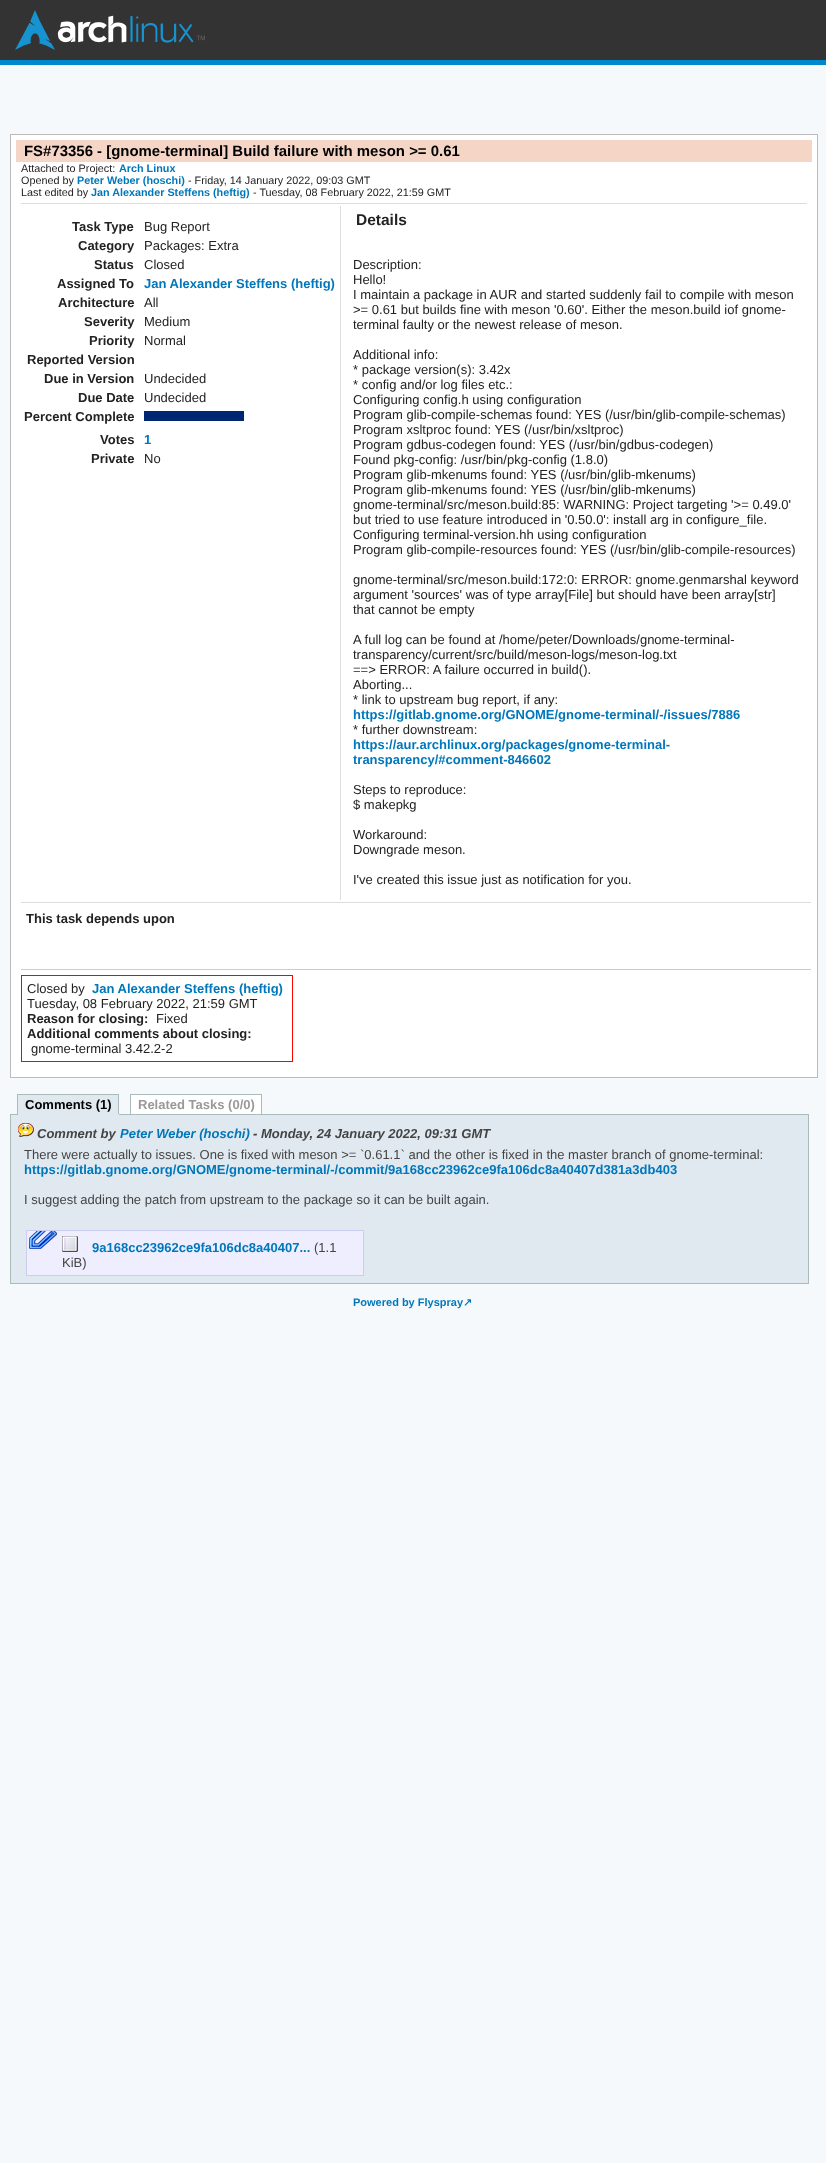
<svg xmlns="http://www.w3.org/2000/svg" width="826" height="2163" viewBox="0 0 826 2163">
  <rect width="100%" height="100%" fill="#f6f9fc"/>
  <rect x="0" y="0" width="826" height="60" fill="#333333"/>
  <rect x="0" y="60" width="826" height="5" fill="#0088cc"/>
  <image x="15" y="10" width="190" height="40" href="img1.png"/>
  <rect x="10.5" y="134.5" width="807" height="943" fill="#ffffff" stroke="#bbbbbb"/>
  <rect x="16" y="140" width="796" height="22" fill="#f5d5c6"/>
  <text x="24" y="156" font-family="Liberation Sans" font-size="14.95" font-weight="bold" fill="#000000">FS#73356 - [gnome-terminal] Build failure with meson &gt;= 0.61</text>
  <rect x="21" y="203" width="786" height="1" fill="#dddddd"/>
  <text x="21" y="172" font-family="Liberation Sans" font-size="10.8" fill="#222222">Attached to Project:</text>
  <text x="119" y="172" font-family="Liberation Sans" font-size="10.8" font-weight="bold" fill="#0077bb">Arch Linux</text>
  <text x="21" y="184" font-family="Liberation Sans" font-size="10.8" fill="#222222">Opened by</text>
  <text x="77" y="184" font-family="Liberation Sans" font-size="10.8" font-weight="bold" fill="#0077bb">Peter Weber (hoschi)</text>
  <text x="188" y="184" font-family="Liberation Sans" font-size="10.8" fill="#222222">- Friday, 14 January 2022, 09:03 GMT</text>
  <text x="21" y="196" font-family="Liberation Sans" font-size="10.8" fill="#222222">Last edited by</text>
  <text x="91" y="196" font-family="Liberation Sans" font-size="10.8" font-weight="bold" fill="#0077bb">Jan Alexander Steffens (heftig)</text>
  <text x="253" y="196" font-family="Liberation Sans" font-size="10.8" fill="#222222">- Tuesday, 08 February 2022, 21:59 GMT</text>
  <rect x="340" y="206" width="1" height="694" fill="#dddddd"/>
  <text x="72" y="231" font-family="Liberation Sans" font-size="13" font-weight="bold" fill="#222222">Task Type</text>
  <text x="144" y="231" font-family="Liberation Sans" font-size="13" fill="#222222">Bug Report</text>
  <text x="78" y="250" font-family="Liberation Sans" font-size="13" font-weight="bold" fill="#222222">Category</text>
  <text x="144" y="250" font-family="Liberation Sans" font-size="13" fill="#222222">Packages: Extra</text>
  <text x="94" y="269" font-family="Liberation Sans" font-size="13" font-weight="bold" fill="#222222">Status</text>
  <text x="144" y="269" font-family="Liberation Sans" font-size="13" fill="#222222">Closed</text>
  <text x="57" y="288" font-family="Liberation Sans" font-size="13" font-weight="bold" fill="#222222">Assigned To</text>
  <text x="144" y="288" font-family="Liberation Sans" font-size="13" font-weight="bold" fill="#0077bb">Jan Alexander Steffens (heftig)</text>
  <text x="58" y="307" font-family="Liberation Sans" font-size="13" font-weight="bold" fill="#222222">Architecture</text>
  <text x="144" y="307" font-family="Liberation Sans" font-size="13" fill="#222222">All</text>
  <text x="84" y="326" font-family="Liberation Sans" font-size="13" font-weight="bold" fill="#222222">Severity</text>
  <text x="144" y="326" font-family="Liberation Sans" font-size="13" fill="#222222">Medium</text>
  <text x="89" y="345" font-family="Liberation Sans" font-size="13" font-weight="bold" fill="#222222">Priority</text>
  <text x="144" y="345" font-family="Liberation Sans" font-size="13" fill="#222222">Normal</text>
  <text x="27" y="364" font-family="Liberation Sans" font-size="13" font-weight="bold" fill="#222222">Reported Version</text>
  <text x="44" y="383" font-family="Liberation Sans" font-size="13" font-weight="bold" fill="#222222">Due in Version</text>
  <text x="144" y="383" font-family="Liberation Sans" font-size="13" fill="#222222">Undecided</text>
  <text x="78" y="402" font-family="Liberation Sans" font-size="13" font-weight="bold" fill="#222222">Due Date</text>
  <text x="144" y="402" font-family="Liberation Sans" font-size="13" fill="#222222">Undecided</text>
  <text x="24" y="421" font-family="Liberation Sans" font-size="13" font-weight="bold" fill="#222222">Percent Complete</text>
  <rect x="144" y="411" width="100" height="10" fill="#002672"/>
  <text x="100" y="444" font-family="Liberation Sans" font-size="13" font-weight="bold" fill="#222222">Votes</text>
  <text x="144" y="444" font-family="Liberation Sans" font-size="13" font-weight="bold" fill="#0077bb">1</text>
  <text x="91" y="463" font-family="Liberation Sans" font-size="13" font-weight="bold" fill="#222222">Private</text>
  <text x="144" y="463" font-family="Liberation Sans" font-size="13" fill="#222222">No</text>
  <text x="356" y="225" font-family="Liberation Sans" font-size="15.5" font-weight="bold" fill="#222222">Details</text>
  <text x="353" y="269" font-family="Liberation Sans" font-size="13" fill="#222222">Description:</text>
  <text x="353" y="284" font-family="Liberation Sans" font-size="13" fill="#222222">Hello!</text>
  <text x="353" y="299" font-family="Liberation Sans" font-size="13" fill="#222222">I maintain a package in AUR and started suddenly fail to compile with meson</text>
  <text x="353" y="314" font-family="Liberation Sans" font-size="13" fill="#222222">&gt;= 0.61 but builds fine with meson '0.60'. Either the meson.build iof gnome-</text>
  <text x="353" y="329" font-family="Liberation Sans" font-size="13" fill="#222222">terminal faulty or the newest release of meson.</text>
  <text x="353" y="359" font-family="Liberation Sans" font-size="13" fill="#222222">Additional info:</text>
  <text x="353" y="374" font-family="Liberation Sans" font-size="13" fill="#222222">* package version(s): 3.42x</text>
  <text x="353" y="389" font-family="Liberation Sans" font-size="13" fill="#222222">* config and/or log files etc.:</text>
  <text x="353" y="404" font-family="Liberation Sans" font-size="13" fill="#222222">Configuring config.h using configuration</text>
  <text x="353" y="419" font-family="Liberation Sans" font-size="13" fill="#222222">Program glib-compile-schemas found: YES (/usr/bin/glib-compile-schemas)</text>
  <text x="353" y="434" font-family="Liberation Sans" font-size="13" fill="#222222">Program xsltproc found: YES (/usr/bin/xsltproc)</text>
  <text x="353" y="449" font-family="Liberation Sans" font-size="13" fill="#222222">Program gdbus-codegen found: YES (/usr/bin/gdbus-codegen)</text>
  <text x="353" y="464" font-family="Liberation Sans" font-size="13" fill="#222222">Found pkg-config: /usr/bin/pkg-config (1.8.0)</text>
  <text x="353" y="479" font-family="Liberation Sans" font-size="13" fill="#222222">Program glib-mkenums found: YES (/usr/bin/glib-mkenums)</text>
  <text x="353" y="494" font-family="Liberation Sans" font-size="13" fill="#222222">Program glib-mkenums found: YES (/usr/bin/glib-mkenums)</text>
  <text x="353" y="509" font-family="Liberation Sans" font-size="13" fill="#222222">gnome-terminal/src/meson.build:85: WARNING: Project targeting '&gt;= 0.49.0'</text>
  <text x="353" y="524" font-family="Liberation Sans" font-size="13" fill="#222222">but tried to use feature introduced in '0.50.0': install arg in configure_file.</text>
  <text x="353" y="539" font-family="Liberation Sans" font-size="13" fill="#222222">Configuring terminal-version.hh using configuration</text>
  <text x="353" y="554" font-family="Liberation Sans" font-size="13" fill="#222222">Program glib-compile-resources found: YES (/usr/bin/glib-compile-resources)</text>
  <text x="353" y="584" font-family="Liberation Sans" font-size="13" fill="#222222">gnome-terminal/src/meson.build:172:0: ERROR: gnome.genmarshal keyword</text>
  <text x="353" y="599" font-family="Liberation Sans" font-size="13" fill="#222222">argument 'sources' was of type array[File] but should have been array[str]</text>
  <text x="353" y="614" font-family="Liberation Sans" font-size="13" fill="#222222">that cannot be empty</text>
  <text x="353" y="644" font-family="Liberation Sans" font-size="13" fill="#222222">A full log can be found at /home/peter/Downloads/gnome-terminal-</text>
  <text x="353" y="659" font-family="Liberation Sans" font-size="13" fill="#222222">transparency/current/src/build/meson-logs/meson-log.txt</text>
  <text x="353" y="674" font-family="Liberation Sans" font-size="13" fill="#222222">==&gt; ERROR: A failure occurred in build().</text>
  <text x="353" y="689" font-family="Liberation Sans" font-size="13" fill="#222222">Aborting...</text>
  <text x="353" y="704" font-family="Liberation Sans" font-size="13" fill="#222222">* link to upstream bug report, if any:</text>
  <text x="353" y="719" font-family="Liberation Sans" font-size="13" font-weight="bold" fill="#0077bb">https://gitlab.gnome.org/GNOME/gnome-terminal/-/issues/7886</text>
  <text x="353" y="734" font-family="Liberation Sans" font-size="13" fill="#222222">* further downstream:</text>
  <text x="353" y="749" font-family="Liberation Sans" font-size="13" font-weight="bold" fill="#0077bb">https://aur.archlinux.org/packages/gnome-terminal-</text>
  <text x="353" y="764" font-family="Liberation Sans" font-size="13" font-weight="bold" fill="#0077bb">transparency/#comment-846602</text>
  <text x="353" y="794" font-family="Liberation Sans" font-size="13" fill="#222222">Steps to reproduce:</text>
  <text x="353" y="809" font-family="Liberation Sans" font-size="13" fill="#222222">$ makepkg</text>
  <text x="353" y="839" font-family="Liberation Sans" font-size="13" fill="#222222">Workaround:</text>
  <text x="353" y="854" font-family="Liberation Sans" font-size="13" fill="#222222">Downgrade meson.</text>
  <text x="353" y="884" font-family="Liberation Sans" font-size="13" fill="#222222">I've created this issue just as notification for you.</text>
  <rect x="21" y="902" width="790" height="1" fill="#dddddd"/>
  <rect x="21" y="969" width="790" height="1" fill="#cccccc"/>
  <text x="26" y="923" font-family="Liberation Sans" font-size="13" font-weight="bold" fill="#222222">This task depends upon</text>
  <rect x="21.5" y="975.5" width="271" height="86" fill="none" stroke="#ff0000"/>
  <text x="27" y="993" font-family="Liberation Sans" font-size="13" fill="#222222">Closed by</text>
  <text x="92" y="993" font-family="Liberation Sans" font-size="13" font-weight="bold" fill="#0077bb">Jan Alexander Steffens (heftig)</text>
  <text x="27" y="1008" font-family="Liberation Sans" font-size="13" fill="#222222">Tuesday, 08 February 2022, 21:59 GMT</text>
  <text x="27" y="1023" font-family="Liberation Sans" font-size="13" font-weight="bold" fill="#222222">Reason for closing:</text>
  <text x="156" y="1023" font-family="Liberation Sans" font-size="13" fill="#222222">Fixed</text>
  <text x="27" y="1038" font-family="Liberation Sans" font-size="13" font-weight="bold" fill="#222222">Additional comments about closing:</text>
  <text x="31" y="1053" font-family="Liberation Sans" font-size="13" fill="#222222">gnome-terminal 3.42.2-2</text>
  <rect x="18" y="1095" width="100" height="19" fill="#e0e9f0"/>
  <text x="25" y="1109" font-family="Liberation Sans" font-size="13" font-weight="bold" fill="#000000">Comments (1)</text>
  <rect x="17" y="1094" width="102" height="1" fill="#aabbbb"/>
  <rect x="10.5" y="1114.5" width="798" height="169" fill="#e0e9f0" stroke="#aabbbb"/>
  <rect x="118" y="1094" width="1" height="21" fill="#aabbbb"/>
  <rect x="17" y="1114" width="102" height="1" fill="#e0e9f0"/>
  <rect x="17" y="1094" width="1" height="21" fill="#aabbbb"/>
  <rect x="130.5" y="1094.5" width="131" height="20" fill="#ffffff" stroke="#aabbbb"/>
  <text x="138" y="1109" font-family="Liberation Sans" font-size="13" font-weight="bold" fill="#999999">Related Tasks (0/0)</text>
  <image x="18" y="1123" width="16" height="14" href="img2.png"/>
  <text x="37" y="1138" font-family="Liberation Sans" font-size="13" font-weight="bold" font-style="italic" fill="#444444">Comment by</text>
  <text x="120" y="1138" font-family="Liberation Sans" font-size="13" font-weight="bold" font-style="italic" fill="#0077bb">Peter Weber (hoschi)</text>
  <text x="253" y="1138" font-family="Liberation Sans" font-size="13" font-weight="bold" font-style="italic" fill="#444444">- Monday, 24 January 2022, 09:31 GMT</text>
  <text x="24" y="1159" font-family="Liberation Sans" font-size="13" fill="#444444">There were actually to issues. One is fixed with meson &gt;= `0.61.1` and the other is fixed in the master branch of gnome-terminal:</text>
  <text x="24" y="1174" font-family="Liberation Sans" font-size="13" font-weight="bold" fill="#0077bb">https://gitlab.gnome.org/GNOME/gnome-terminal/-/commit/9a168cc23962ce9fa106dc8a40407d381a3db403</text>
  <text x="24" y="1204" font-family="Liberation Sans" font-size="13" fill="#444444">I suggest adding the patch from upstream to the package so it can be built again.</text>
  <rect x="27" y="1231" width="336" height="44" fill="#eeeeff"/>
  <image x="29" y="1231" width="28" height="18" href="img3.png"/>
  <rect x="26.5" y="1230.5" width="337" height="45" fill="none" stroke="#ccccee"/>
  <image x="62" y="1236" width="16" height="16" href="img4.png"/>
  <text x="92" y="1252" font-family="Liberation Sans" font-size="13" font-weight="bold" fill="#0077bb">9a168cc23962ce9fa106dc8a40407...</text>
  <text x="314" y="1252" font-family="Liberation Sans" font-size="13" fill="#444444">(1.1</text>
  <text x="62" y="1267" font-family="Liberation Sans" font-size="13" fill="#444444">KiB)</text>
  <text x="353" y="1306" font-family="Liberation Sans" font-size="11" font-weight="bold" fill="#0077bb">Powered by Flyspray</text>
  <text x="463" y="1306" font-family="DejaVu Sans" font-size="11" font-weight="bold" fill="#0077bb">↗</text>
</svg>
